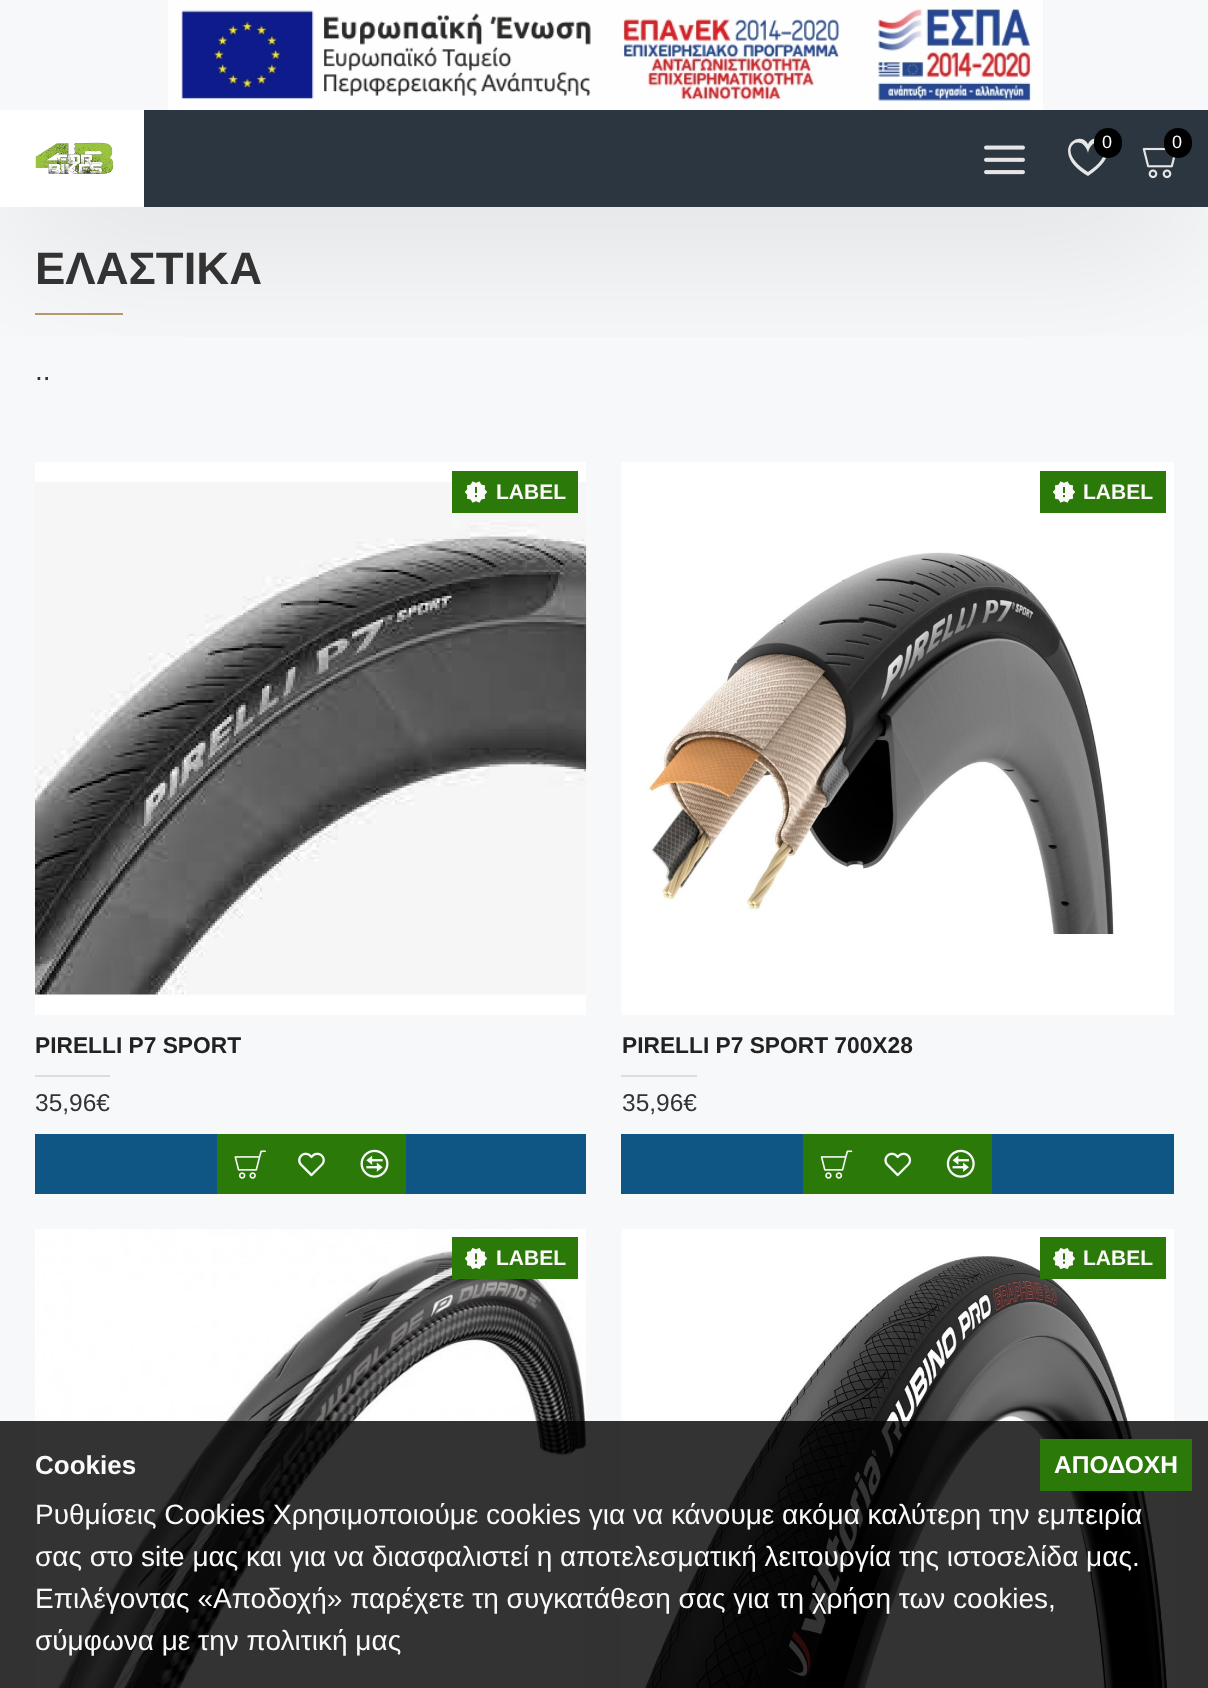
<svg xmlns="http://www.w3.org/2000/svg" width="1208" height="1688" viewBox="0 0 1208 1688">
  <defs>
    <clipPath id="clip1"><rect x="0" y="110" width="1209" height="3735"/></clipPath>
    <filter id="blur1" x="-50%" y="-200%" width="200%" height="500%"><feGaussianBlur stdDeviation="79"/></filter>
  </defs>
  <rect width="100%" height="100%" fill="#f7f8fa"/>
  <image x="168" y="0" width="875" height="110" href="img1.png"/>
  <rect x="35" y="313" width="88" height="2" fill="#b59b6e"/>
  <g clip-path="url(#clip1)">
    <rect x="18" y="154" width="1174" height="61" fill="#000000" fill-opacity="0.2" filter="url(#blur1)"/>
  </g>
  <rect x="144" y="110" width="1064" height="97" fill="#2c3640"/>
  <rect x="0" y="110" width="144" height="97" fill="#ffffff"/>
  <image x="35" y="142" width="79" height="32" href="img2.png"/>
  <path d="M1088 153C1093 130 1123 149 1088 172C1052 149 1082 130 1088 153ZM1068 151C1068 162 1079 171 1088 176C1129 150 1095 128 1088 144C1083 134 1068 139 1068 151Z" fill="#e6e6e6"/>
  <rect x="1094" y="128" width="28" height="30" rx="14" fill="#000000"/>
  <text x="1102" y="148" font-family="Liberation Sans" font-size="18" fill="#ffffff">0</text>
  <image x="1142" y="147" width="34" height="32" href="img3.png"/>
  <rect x="1164" y="128" width="28" height="30" rx="14" fill="#000000"/>
  <text x="1172" y="148" font-family="Liberation Sans" font-size="18" fill="#ffffff">0</text>
  <image x="984" y="145" width="41" height="30" href="img4.png"/>
  <text x="35" y="284" font-family="Liberation Sans" font-size="45.5" font-weight="bold" fill="#333333">ΕΛΑΣΤΙΚΑ</text>
  <text x="35" y="380" font-family="Liberation Sans" font-size="28" fill="#333333">..</text>
  <image x="35" y="462" width="552" height="553" href="img5.png"/>
  <rect x="452" y="471" width="126" height="42" fill="#2b7909"/>
  <image x="464" y="481" width="24" height="22" href="img6.png"/>
  <text x="496" y="499" font-family="Liberation Sans" font-size="21" font-weight="bold" fill="#fcf9f9">LABEL</text>
  <text x="35" y="1053" font-family="Liberation Sans" font-size="22.75" font-weight="bold" fill="#222222">PIRELLI P7 SPORT</text>
  <rect x="35" y="1075" width="75" height="2" fill="#dddddd"/>
  <text x="35" y="1111" font-family="Liberation Sans" font-size="24.5" fill="#333333">35,96€</text>
  <rect x="35" y="1134" width="551" height="60" fill="#0f5684"/>
  <rect x="217" y="1134" width="189" height="60" fill="#2b7909"/>
  <image x="234" y="1150" width="32" height="29" href="img7.png"/>
  <image x="298" y="1152" width="27" height="25" href="img8.png"/>
  <image x="360" y="1149" width="29" height="29" href="img9.png"/>
  <image x="621" y="462" width="553" height="553" href="img10.png"/>
  <rect x="1040" y="471" width="126" height="42" fill="#2b7909"/>
  <image x="1052" y="481" width="24" height="22" href="img6.png"/>
  <text x="1083" y="499" font-family="Liberation Sans" font-size="21" font-weight="bold" fill="#fcf9f9">LABEL</text>
  <text x="622" y="1053" font-family="Liberation Sans" font-size="22.75" font-weight="bold" fill="#222222">PIRELLI P7 SPORT 700X28</text>
  <rect x="621" y="1075" width="76" height="2" fill="#dddddd"/>
  <text x="622" y="1111" font-family="Liberation Sans" font-size="24.5" fill="#333333">35,96€</text>
  <rect x="621" y="1134" width="553" height="60" fill="#0f5684"/>
  <rect x="803" y="1134" width="189" height="60" fill="#2b7909"/>
  <image x="820" y="1150" width="33" height="29" href="img11.png"/>
  <image x="884" y="1152" width="28" height="25" href="img12.png"/>
  <image x="946" y="1149" width="29" height="29" href="img13.png"/>
  <image x="35" y="1229" width="552" height="459" href="img14.png"/>
  <rect x="452" y="1237" width="126" height="42" fill="#2b7909"/>
  <image x="464" y="1247" width="24" height="23" href="img15.png"/>
  <text x="496" y="1265" font-family="Liberation Sans" font-size="21" font-weight="bold" fill="#fcf9f9">LABEL</text>
  <image x="621" y="1229" width="553" height="459" href="img16.png"/>
  <rect x="1040" y="1237" width="126" height="42" fill="#2b7909"/>
  <image x="1052" y="1247" width="24" height="23" href="img15.png"/>
  <text x="1083" y="1265" font-family="Liberation Sans" font-size="21" font-weight="bold" fill="#fcf9f9">LABEL</text>
  <rect x="0" y="1421" width="1208" height="267" fill="#000000" fill-opacity="0.8"/>
  <text x="35" y="1474" font-family="Liberation Sans" font-size="26" font-weight="bold" fill="#fcf9f9">Cookies</text>
  <text x="35" y="1524" font-family="Liberation Sans" font-size="28" fill="#fcf9f9">Ρυθμίσεις Cookies Χρησιμοποιούμε cookies για να κάνουμε ακόμα καλύτερη την εμπειρία</text>
  <text x="35" y="1566" font-family="Liberation Sans" font-size="28" fill="#fcf9f9">σας στο site μας και για να διασφαλιστεί η αποτελεσματική λειτουργία της ιστοσελίδα μας.</text>
  <text x="35" y="1608" font-family="Liberation Sans" font-size="28" fill="#fcf9f9">Επιλέγοντας «Αποδοχή» παρέχετε τη συγκατάθεση σας για τη χρήση των cookies,</text>
  <text x="35" y="1650" font-family="Liberation Sans" font-size="28" fill="#fcf9f9">σύμφωνα με την πολιτική μας</text>
  <rect x="1040" y="1439" width="152" height="52" fill="#2b7909"/>
  <text x="1054" y="1473" font-family="Liberation Sans" font-size="24.5" font-weight="bold" fill="#ffffff">ΑΠΟΔΟΧΗ</text>
</svg>
